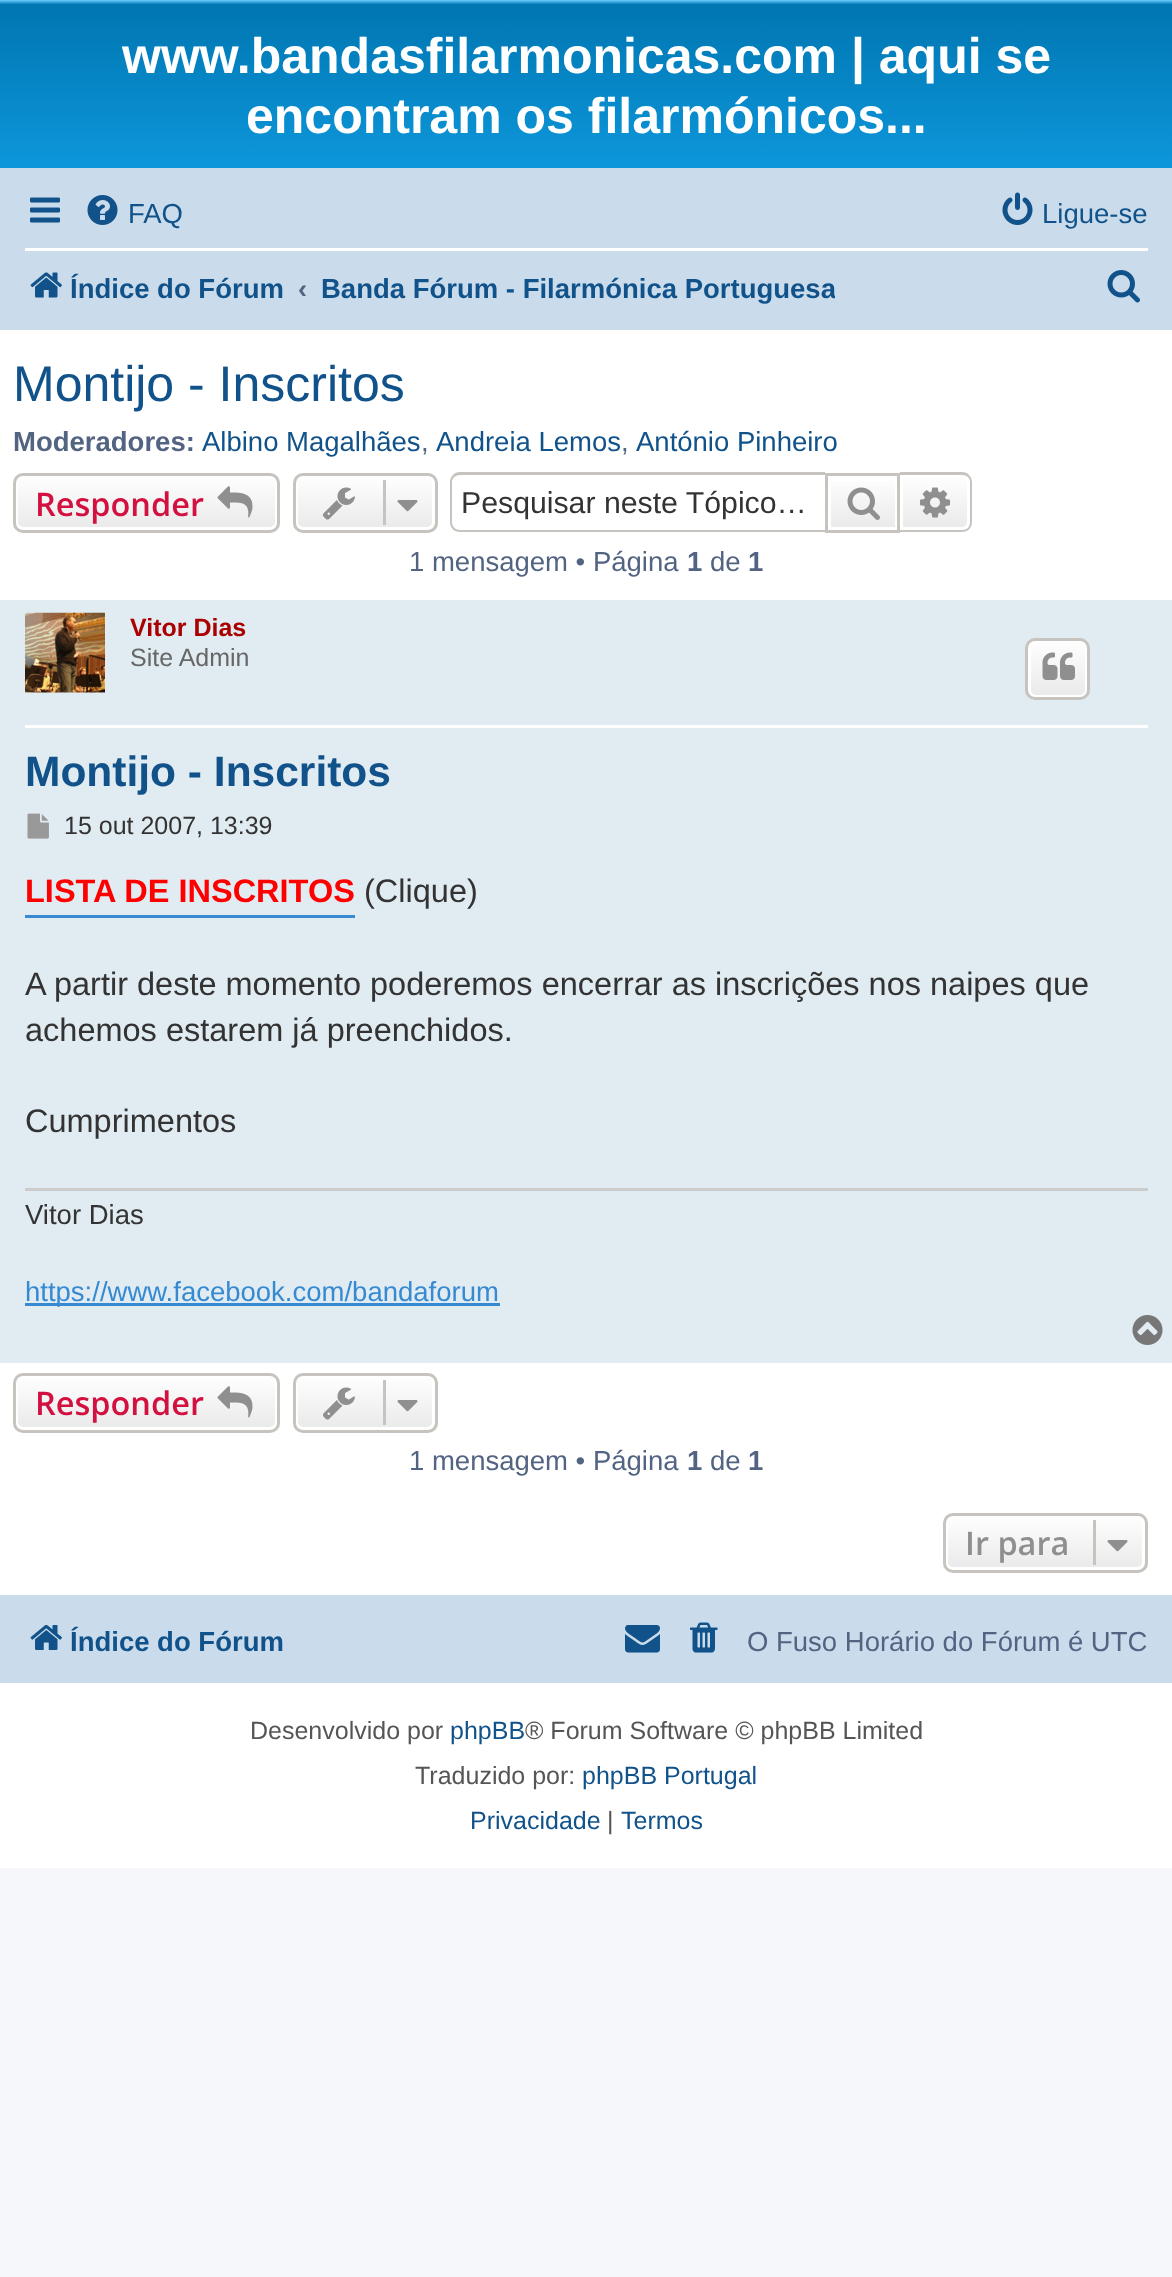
<svg xmlns="http://www.w3.org/2000/svg" width="1172" height="2277" viewBox="0 0 1172 2277">
  <defs>
    <linearGradient id="g1" gradientUnits="userSpaceOnUse" x1="586" y1="0" x2="586" y2="230"><stop offset="0" stop-color="#6aceff"/><stop offset="0.02" stop-color="#0076b1"/><stop offset="1" stop-color="#12a3eb"/></linearGradient>
    <clipPath id="clip1"><rect x="320" y="258" width="515" height="60"/></clipPath>
    <clipPath id="clip2"><rect x="13" y="473" width="267" height="60" rx="10"/></clipPath>
    <linearGradient id="g2" gradientUnits="userSpaceOnUse" x1="146" y1="475" x2="146" y2="530"><stop offset="0" stop-color="#ffffff"/><stop offset="1" stop-color="#e9e9e9"/></linearGradient>
    <clipPath id="clip3"><rect x="293" y="473" width="145" height="60" rx="10"/></clipPath>
    <linearGradient id="g3" gradientUnits="userSpaceOnUse" x1="365" y1="475" x2="365" y2="530"><stop offset="0" stop-color="#ffffff"/><stop offset="1" stop-color="#e9e9e9"/></linearGradient>
    <linearGradient id="g4" gradientUnits="userSpaceOnUse" x1="863" y1="475" x2="863" y2="530"><stop offset="0" stop-color="#ffffff"/><stop offset="1" stop-color="#e9e9e9"/></linearGradient>
    <linearGradient id="g5" gradientUnits="userSpaceOnUse" x1="935" y1="475" x2="935" y2="530"><stop offset="0" stop-color="#ffffff"/><stop offset="1" stop-color="#e9e9e9"/></linearGradient>
    <clipPath id="clip4"><rect x="1025" y="638" width="65" height="62" rx="10"/></clipPath>
    <linearGradient id="g6" gradientUnits="userSpaceOnUse" x1="1058" y1="640" x2="1058" y2="698"><stop offset="0" stop-color="#ffffff"/><stop offset="1" stop-color="#e9e9e9"/></linearGradient>
    <clipPath id="clip5"><rect x="13" y="1373" width="267" height="60" rx="10"/></clipPath>
    <linearGradient id="g7" gradientUnits="userSpaceOnUse" x1="146" y1="1375" x2="146" y2="1430"><stop offset="0" stop-color="#ffffff"/><stop offset="1" stop-color="#e9e9e9"/></linearGradient>
    <clipPath id="clip6"><rect x="293" y="1373" width="145" height="60" rx="10"/></clipPath>
    <linearGradient id="g8" gradientUnits="userSpaceOnUse" x1="365" y1="1375" x2="365" y2="1430"><stop offset="0" stop-color="#ffffff"/><stop offset="1" stop-color="#e9e9e9"/></linearGradient>
    <clipPath id="clip7"><rect x="943" y="1513" width="205" height="60" rx="10"/></clipPath>
    <linearGradient id="g9" gradientUnits="userSpaceOnUse" x1="1045" y1="1515" x2="1045" y2="1570"><stop offset="0" stop-color="#ffffff"/><stop offset="1" stop-color="#e9e9e9"/></linearGradient>
  </defs>
  <rect width="100%" height="100%" fill="#f5f7fa"/>
  <rect x="0" y="330" width="1172" height="1538" fill="#ffffff"/>
  <rect x="0" y="0" width="1172" height="168" fill="url(#g1)"/>
  <text x="122" y="73" font-family="Liberation Sans" font-size="50" font-weight="bold" fill="#ffffff">www.bandasfilarmonicas.com | aqui se</text>
  <text x="246" y="133" font-family="Liberation Sans" font-size="50" font-weight="bold" fill="#ffffff">encontram os filarmónicos...</text>
  <rect x="0" y="168" width="1172" height="162" fill="#cadceb"/>
  <image x="30" y="197" width="30" height="26" href="img1.png"/>
  <image x="87" y="195" width="31" height="30" href="img2.png"/>
  <text x="128" y="223" font-family="Liberation Sans" font-size="27.5" fill="#105289">FAQ</text>
  <image x="1002" y="192" width="31" height="33" href="img3.png"/>
  <text x="1042" y="223" font-family="Liberation Sans" font-size="27.5" fill="#105289">Ligue-se</text>
  <rect x="25" y="248" width="1123" height="3" fill="#ffffff"/>
  <image x="30" y="272" width="32" height="26" href="img4.png"/>
  <text x="70" y="298" font-family="Liberation Sans" font-size="27.5" font-weight="bold" fill="#105289">Índice do Fórum</text>
  <text x="298" y="298" font-family="Liberation Sans" font-size="27.5" font-weight="bold" fill="#536482">‹</text>
  <g clip-path="url(#clip1)">
    <text x="321" y="298" font-family="Liberation Sans" font-size="27.5" font-weight="bold" fill="#105289">Banda Fórum - Filarmónica Portuguesa</text>
  </g>
  <image x="1107" y="270" width="33" height="33" href="img5.png"/>
  <text x="13" y="401" font-family="Liberation Sans" font-size="50" fill="#105289">Montijo - Inscritos</text>
  <text x="13" y="451" font-family="Liberation Sans" font-size="27.5" font-weight="bold" fill="#536482">Moderadores:</text>
  <text x="202" y="451" font-family="Liberation Sans" font-size="27.5" fill="#105289">Albino Magalhães</text>
  <text x="421" y="451" font-family="Liberation Sans" font-size="27.5" fill="#536482">,</text>
  <text x="436" y="451" font-family="Liberation Sans" font-size="27.5" fill="#105289">Andreia Lemos</text>
  <text x="621" y="451" font-family="Liberation Sans" font-size="27.5" fill="#536482">,</text>
  <text x="636" y="451" font-family="Liberation Sans" font-size="27.5" fill="#105289">António Pinheiro</text>
  <g clip-path="url(#clip2)">
    <rect x="13" y="475" width="267" height="55" fill="url(#g2)"/>
  </g>
  <rect x="16.5" y="476.5" width="260" height="52" rx="6.5" fill="none" stroke="#ffffff" stroke-width="3"/>
  <rect x="14.5" y="474.5" width="264" height="57" rx="8.5" fill="none" stroke="#c7c3bf" stroke-width="3"/>
  <text x="35" y="516" font-family="Open Sans" font-size="32.5" font-weight="600" fill="#d31141">Responder</text>
  <image x="217" y="486" width="36" height="32" href="img6.png"/>
  <g clip-path="url(#clip3)">
    <rect x="293" y="475" width="145" height="55" fill="url(#g3)"/>
  </g>
  <rect x="296.5" y="476.5" width="137" height="52" rx="6.5" fill="none" stroke="#ffffff" stroke-width="3"/>
  <rect x="294.5" y="474.5" width="142" height="57" rx="8.5" fill="none" stroke="#c7c3bf" stroke-width="3"/>
  <image x="323" y="487" width="32" height="33" href="img7.png"/>
  <rect x="383" y="480" width="3" height="45" fill="#c7c3bf"/>
  <image x="397" y="500" width="21" height="12" href="img8.png"/>
  <path d="M460 472H825V532H460C454 532 450 528 450 522V482C450 477 454 472 460 472ZM460 475H825V530H460C456 530 452 527 452 522V482C452 478 456 475 460 475Z" fill="#c7c3bf" fill-rule="evenodd"/>
  <text x="461" y="513" font-family="Liberation Sans" font-size="30.25" fill="#333333">Pesquisar neste Tópico…</text>
  <rect x="831" y="481" width="64" height="46" fill="url(#g4)"/>
  <rect x="826.5" y="474.5" width="72" height="57" fill="none" stroke="#c7c3bf" stroke-width="3"/>
  <image x="847" y="487" width="33" height="33" href="img9.png"/>
  <path d="M901.5 476.5H962C965.5 476.5 968.5 479.5 968.5 483V522C968.5 525.5 965.5 528.5 962 528.5H901.5Z" fill="url(#g5)" stroke="#ffffff" stroke-width="3"/>
  <path d="M900 472H962C968 472 972 477 972 482V522C972 528 968 532 962 532H900ZM900 475H962C967 475 970 478 970 482V522C970 527 967 530 962 530H900Z" fill="#c7c3bf" fill-rule="evenodd"/>
  <image x="920" y="487" width="30" height="31" href="img10.png"/>
  <text x="409" y="571" font-family="Liberation Sans" font-size="27.5" fill="#536482">1 mensagem • Página</text>
  <text x="687" y="571" font-family="Liberation Sans" font-size="27.5" font-weight="bold" fill="#536482">1</text>
  <text x="710" y="571" font-family="Liberation Sans" font-size="27.5" fill="#536482">de</text>
  <text x="748" y="571" font-family="Liberation Sans" font-size="27.5" font-weight="bold" fill="#536482">1</text>
  <rect x="0" y="600" width="1172" height="763" fill="#e1ebf2"/>
  <rect x="25" y="725" width="1123" height="3" fill="#ffffff"/>
  <image x="25" y="612" width="80" height="81" href="img11.png"/>
  <text x="130" y="636" font-family="Liberation Sans" font-size="25" font-weight="bold" fill="#aa0000">Vitor Dias</text>
  <text x="130" y="666" font-family="Liberation Sans" font-size="25" fill="#666666">Site Admin</text>
  <g clip-path="url(#clip4)">
    <rect x="1025" y="640" width="65" height="58" fill="url(#g6)"/>
  </g>
  <rect x="1029.5" y="641.5" width="57" height="55" rx="6.5" fill="none" stroke="#ffffff" stroke-width="3"/>
  <rect x="1026.5" y="639.5" width="62" height="59" rx="8.5" fill="none" stroke="#c7c3bf" stroke-width="3"/>
  <image x="1042" y="652" width="33" height="28" href="img12.png"/>
  <text x="25" y="786" font-family="Liberation Sans" font-size="42.5" font-weight="bold" fill="#105289">Montijo - Inscritos</text>
  <image x="27" y="813" width="22" height="26" href="img13.png"/>
  <text x="64" y="834" font-family="Liberation Sans" font-size="25" fill="#333333">15 out 2007, 13:39</text>
  <rect x="25" y="915" width="330" height="3" fill="#368ad2"/>
  <text x="25" y="902" font-family="Liberation Sans" font-size="32.5" font-weight="bold" fill="#ff0000">LISTA DE INSCRITOS</text>
  <text x="364" y="902" font-family="Liberation Sans" font-size="32.5" fill="#333333">(Clique)</text>
  <text x="25" y="995" font-family="Liberation Sans" font-size="32.5" fill="#333333">A partir deste momento poderemos encerrar as inscrições nos naipes que</text>
  <text x="25" y="1041" font-family="Liberation Sans" font-size="32.5" fill="#333333">achemos estarem já preenchidos.</text>
  <text x="25" y="1132" font-family="Liberation Sans" font-size="32.5" fill="#333333">Cumprimentos</text>
  <rect x="25" y="1188" width="1123" height="3" fill="#cccccc"/>
  <text x="25" y="1224" font-family="Liberation Sans" font-size="27.5" fill="#333333">Vitor Dias</text>
  <rect x="25" y="1303" width="475" height="3" fill="#368ad2"/>
  <text x="25" y="1301" font-family="Liberation Sans" font-size="27.5" fill="#368ad2">https://www.facebook.com/bandaforum</text>
  <image x="1132" y="1315" width="31" height="30" href="img14.png"/>
  <g clip-path="url(#clip5)">
    <rect x="13" y="1375" width="267" height="55" fill="url(#g7)"/>
  </g>
  <rect x="16.5" y="1376.5" width="260" height="52" rx="6.5" fill="none" stroke="#ffffff" stroke-width="3"/>
  <rect x="14.5" y="1374.5" width="264" height="57" rx="8.5" fill="none" stroke="#c7c3bf" stroke-width="3"/>
  <text x="35" y="1415" font-family="Open Sans" font-size="32.5" font-weight="600" fill="#d31141">Responder</text>
  <image x="217" y="1386" width="36" height="32" href="img6.png"/>
  <g clip-path="url(#clip6)">
    <rect x="293" y="1375" width="145" height="55" fill="url(#g8)"/>
  </g>
  <rect x="296.5" y="1376.5" width="137" height="52" rx="6.5" fill="none" stroke="#ffffff" stroke-width="3"/>
  <rect x="294.5" y="1374.5" width="142" height="57" rx="8.5" fill="none" stroke="#c7c3bf" stroke-width="3"/>
  <image x="323" y="1387" width="32" height="33" href="img7.png"/>
  <rect x="383" y="1380" width="3" height="45" fill="#c7c3bf"/>
  <image x="397" y="1400" width="21" height="12" href="img8.png"/>
  <text x="409" y="1470" font-family="Liberation Sans" font-size="27.5" fill="#536482">1 mensagem • Página</text>
  <text x="687" y="1470" font-family="Liberation Sans" font-size="27.5" font-weight="bold" fill="#536482">1</text>
  <text x="710" y="1470" font-family="Liberation Sans" font-size="27.5" fill="#536482">de</text>
  <text x="748" y="1470" font-family="Liberation Sans" font-size="27.5" font-weight="bold" fill="#536482">1</text>
  <g clip-path="url(#clip7)">
    <rect x="943" y="1515" width="205" height="55" fill="url(#g9)"/>
  </g>
  <rect x="946.5" y="1516.5" width="197" height="52" rx="6.5" fill="none" stroke="#ffffff" stroke-width="3"/>
  <rect x="944.5" y="1514.5" width="202" height="57" rx="8.5" fill="none" stroke="#c7c3bf" stroke-width="3"/>
  <text x="965" y="1555" font-family="Open Sans" font-size="32.5" font-weight="600" fill="#8f8f8f">Ir para</text>
  <rect x="1093" y="1520" width="3" height="45" fill="#c7c3bf"/>
  <image x="1107" y="1540" width="21" height="12" href="img8.png"/>
  <rect x="0" y="1595" width="1172" height="88" fill="#cadceb"/>
  <image x="30" y="1624" width="32" height="26" href="img15.png"/>
  <text x="70" y="1651" font-family="Liberation Sans" font-size="27.5" font-weight="bold" fill="#105289">Índice do Fórum</text>
  <image x="625" y="1625" width="35" height="28" href="img16.png"/>
  <image x="690" y="1622" width="28" height="31" href="img17.png"/>
  <text x="747" y="1651" font-family="Liberation Sans" font-size="27.5" fill="#536482">O Fuso Horário do Fórum é UTC</text>
  <text x="250" y="1739" font-family="Liberation Sans" font-size="25" fill="#555555">Desenvolvido por</text>
  <text x="450" y="1739" font-family="Liberation Sans" font-size="25" fill="#105289">phpBB</text>
  <text x="525" y="1739" font-family="Liberation Sans" font-size="25" fill="#555555">® Forum Software © phpBB Limited</text>
  <text x="415" y="1784" font-family="Liberation Sans" font-size="25" fill="#555555">Traduzido por:</text>
  <text x="582" y="1784" font-family="Liberation Sans" font-size="25" fill="#105289">phpBB Portugal</text>
  <text x="470" y="1829" font-family="Liberation Sans" font-size="25" fill="#105289">Privacidade</text>
  <text x="607" y="1829" font-family="Liberation Sans" font-size="25" fill="#555555">|</text>
  <text x="621" y="1829" font-family="Liberation Sans" font-size="25" fill="#105289">Termos</text>
</svg>
